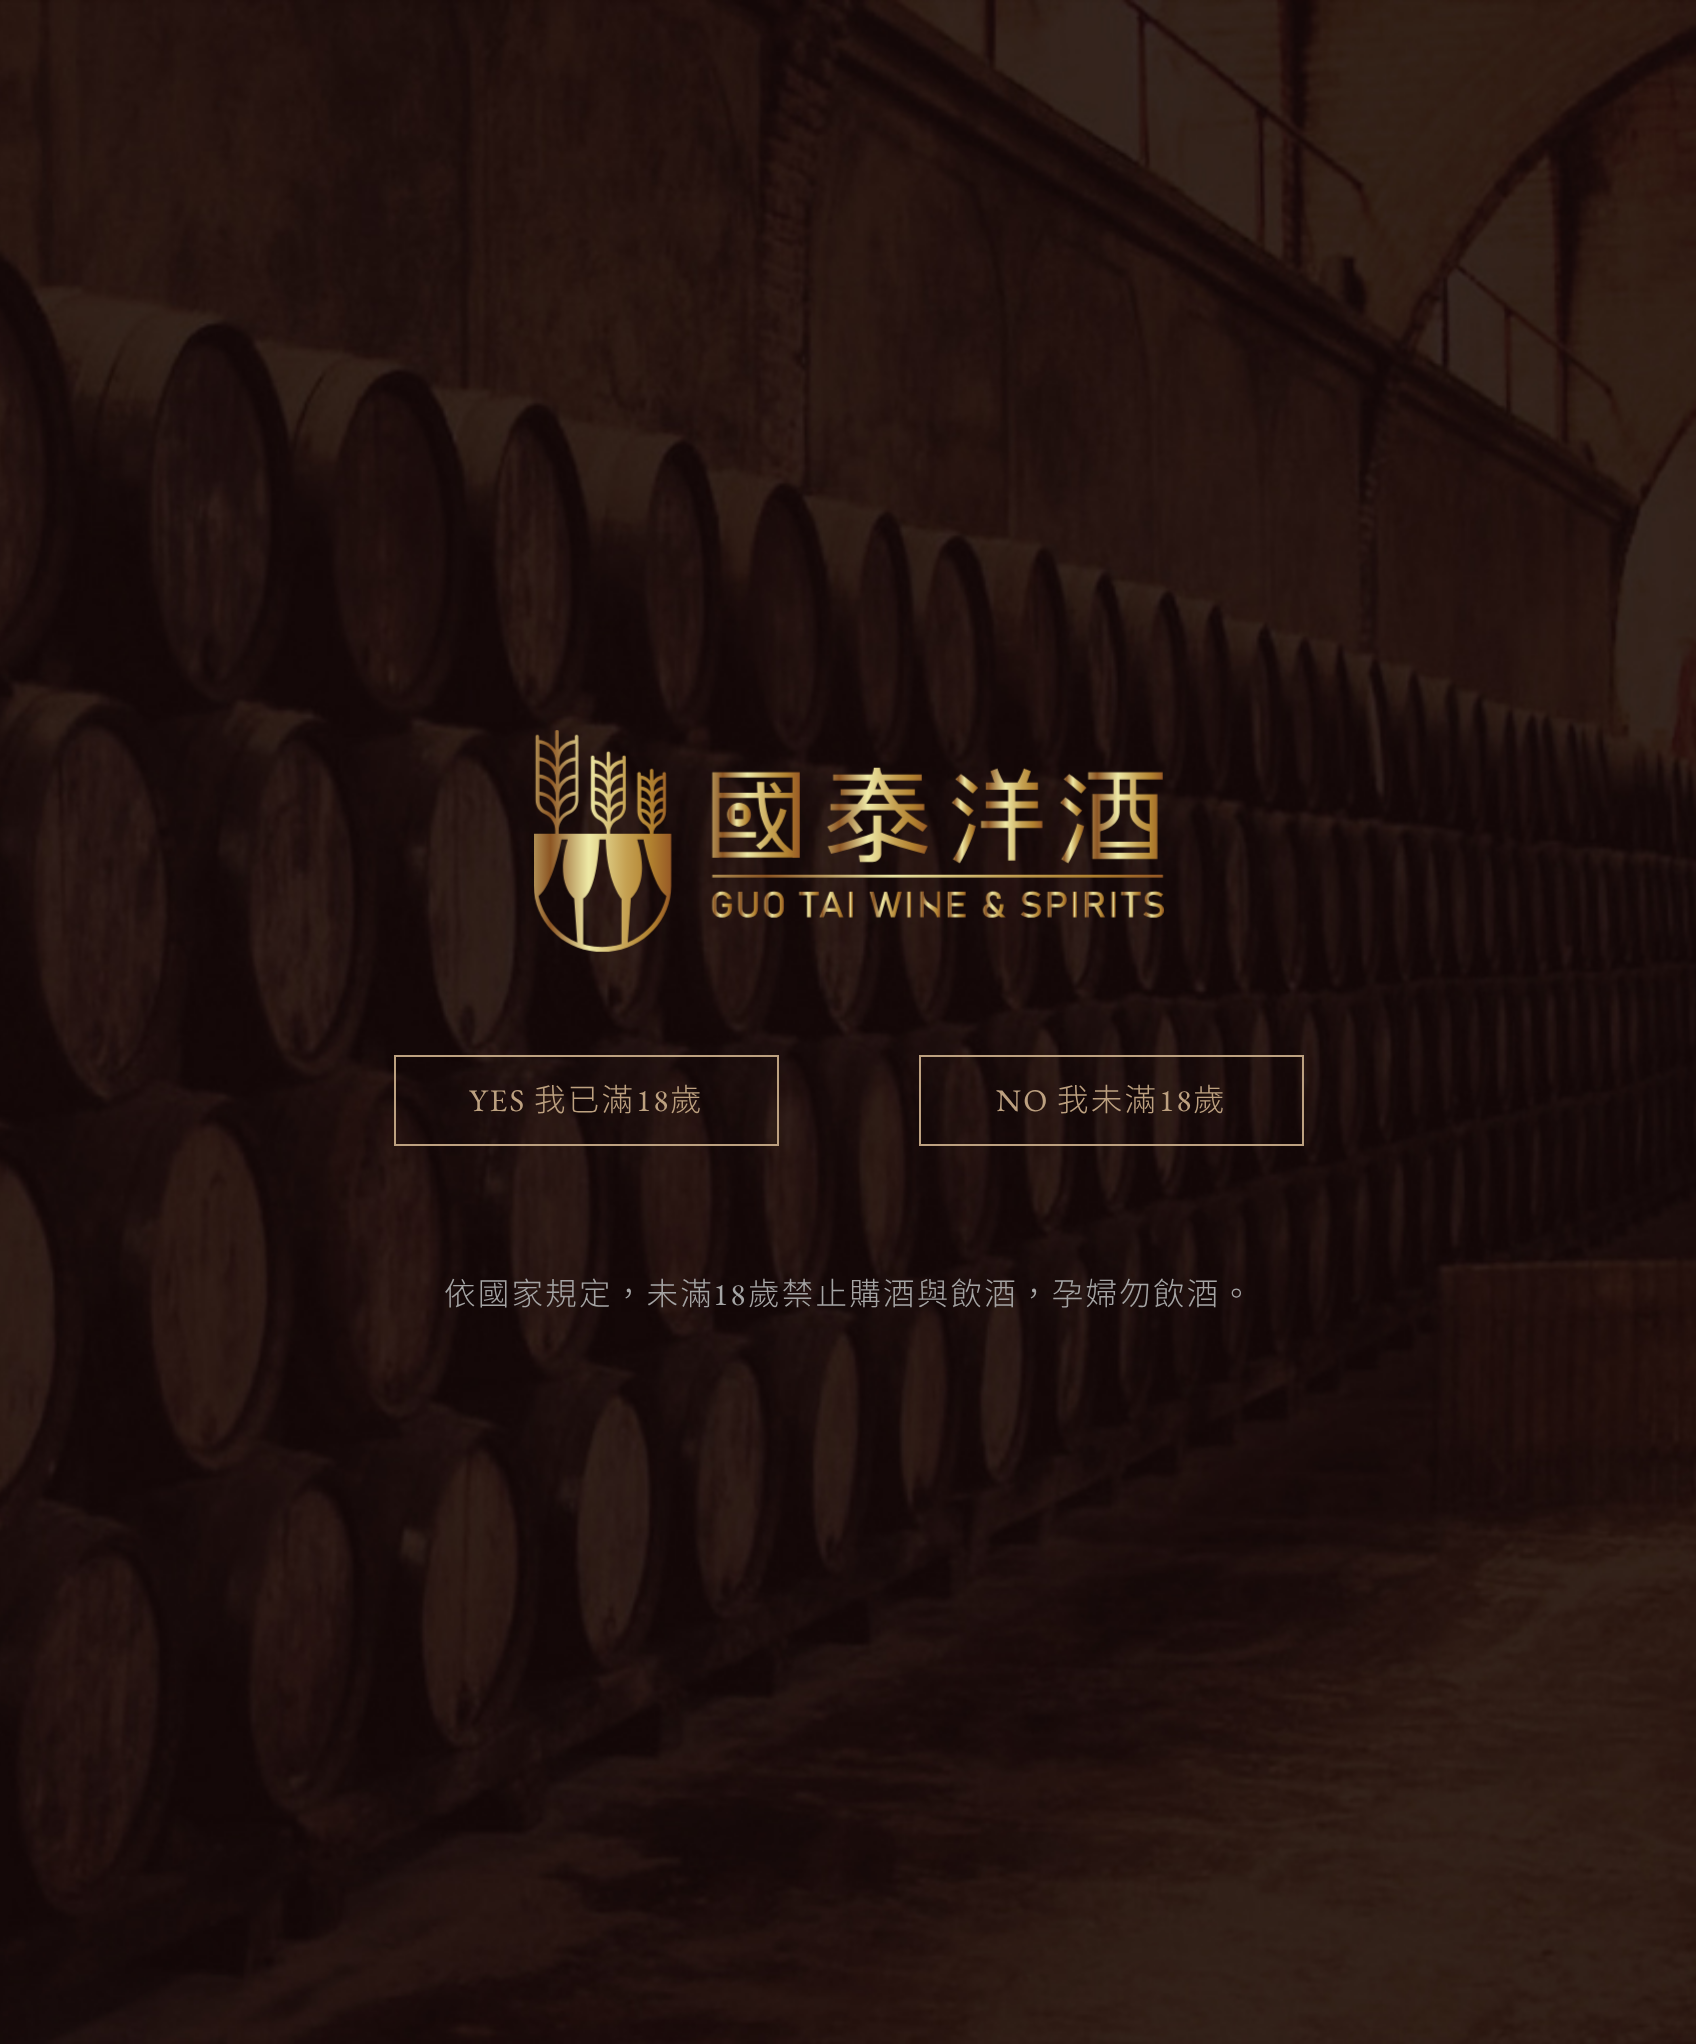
<svg xmlns="http://www.w3.org/2000/svg" width="1696" height="2044" viewBox="0 0 1696 2044">
  <rect width="100%" height="100%" fill="#ffffff"/>
  <image x="0" y="0" width="1696" height="2044" href="img1.png"/>
  <image x="534" y="730" width="630" height="222" href="img2.png"/>
  <rect x="395" y="1056" width="383" height="89" fill="none" stroke="#bda180" stroke-width="2"/>
  <text x="469" y="1111" font-family="EB Garamond" font-size="31.5" letter-spacing="2.25" fill="#bda180">YES</text>
  <text x="534" y="1111" font-family="Noto Sans TC" font-size="31.5" font-weight="300" letter-spacing="2.25" fill="#bda180">我已滿</text>
  <text x="636" y="1111" font-family="EB Garamond" font-size="31.5" letter-spacing="2.25" fill="#bda180">18</text>
  <text x="670" y="1111" font-family="Noto Sans TC" font-size="31.5" font-weight="300" letter-spacing="2.25" fill="#bda180">歲</text>
  <rect x="920" y="1056" width="383" height="89" fill="none" stroke="#bda180" stroke-width="2"/>
  <text x="996" y="1111" font-family="EB Garamond" font-size="31.5" letter-spacing="2.25" fill="#bda180">NO</text>
  <text x="1057" y="1111" font-family="Noto Sans TC" font-size="31.5" font-weight="300" letter-spacing="2.25" fill="#bda180">我未滿</text>
  <text x="1159" y="1111" font-family="EB Garamond" font-size="31.5" letter-spacing="2.25" fill="#bda180">18</text>
  <text x="1193" y="1111" font-family="Noto Sans TC" font-size="31.5" font-weight="300" letter-spacing="2.25" fill="#bda180">歲</text>
  <text x="444" y="1305" font-family="Noto Sans TC" font-size="31.5" font-weight="300" letter-spacing="2.25" fill="#a5a5a5">依國家規定，未滿</text>
  <text x="713" y="1305" font-family="EB Garamond" font-size="31.5" letter-spacing="2.25" fill="#a5a5a5">18</text>
  <text x="748" y="1305" font-family="Noto Sans TC" font-size="31.5" font-weight="300" letter-spacing="2.25" fill="#a5a5a5">歲禁止購酒與飲酒，孕婦勿飲酒。</text>
</svg>
